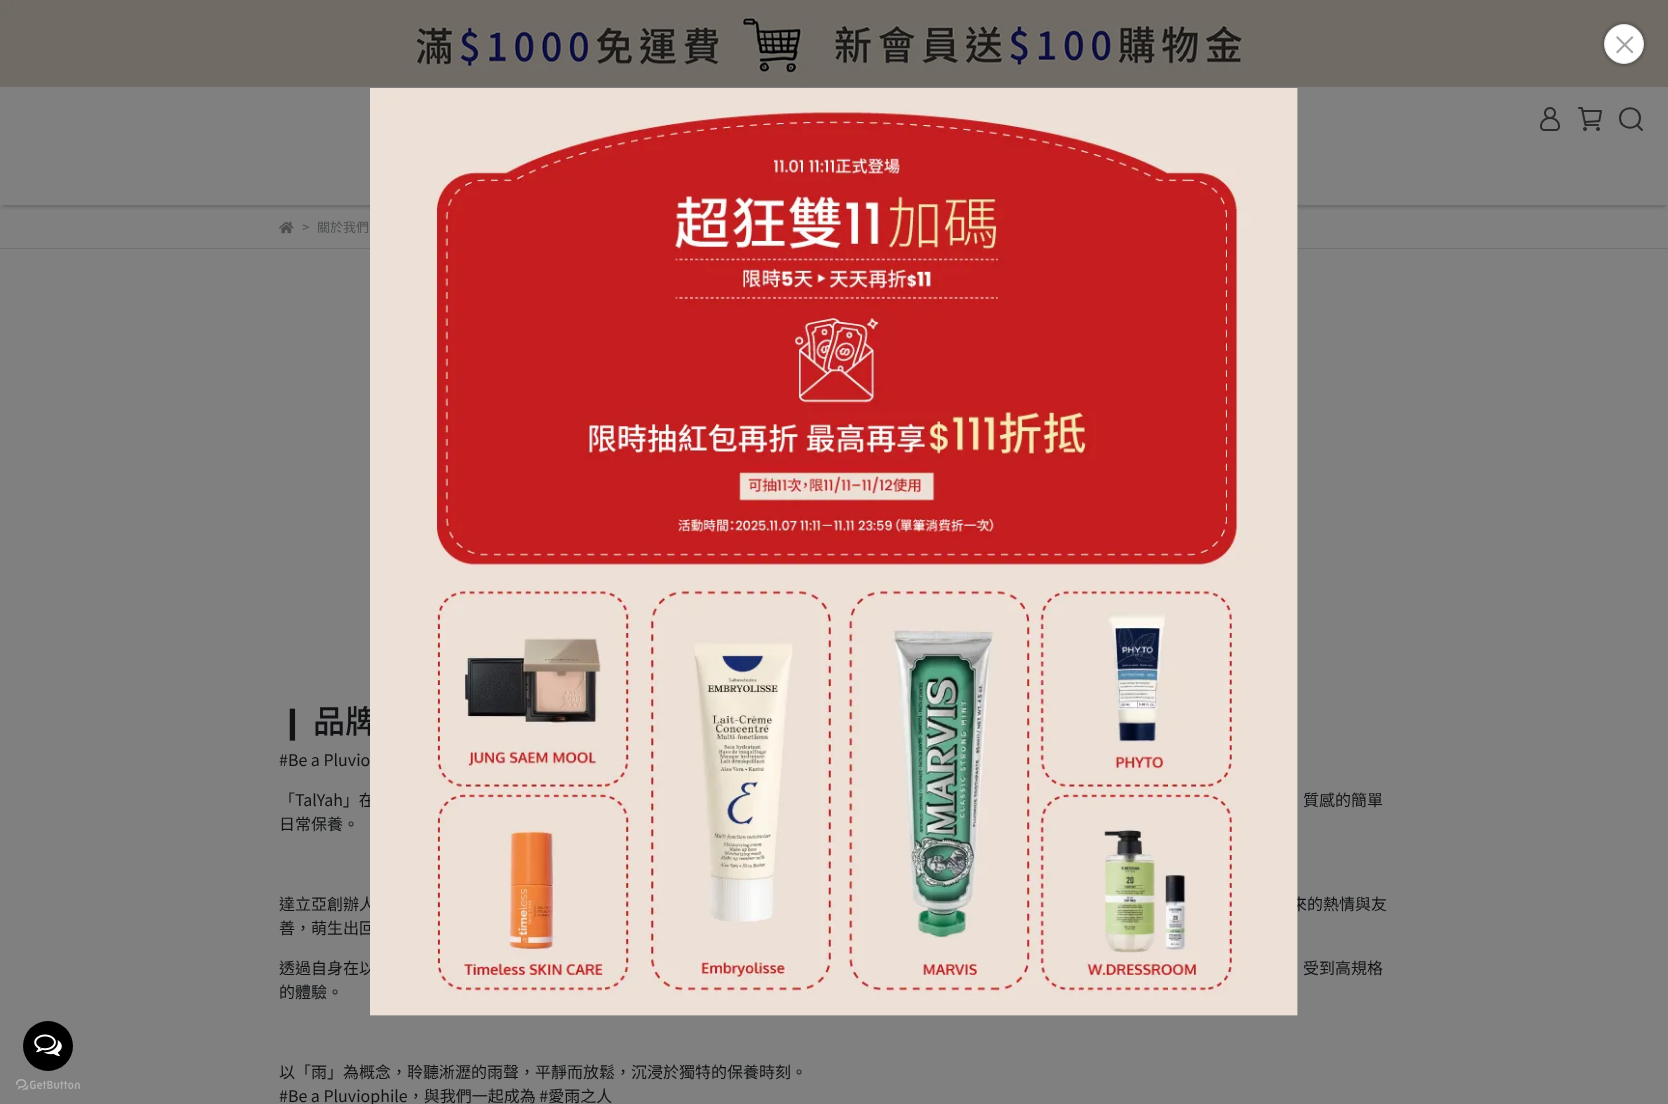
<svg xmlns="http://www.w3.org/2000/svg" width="1668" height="1104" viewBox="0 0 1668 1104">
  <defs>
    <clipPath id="clip1"><rect x="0" y="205" width="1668" height="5"/></clipPath>
    <filter id="blur1" x="-50%" y="-200%" width="200%" height="500%"><feGaussianBlur stdDeviation="2"/></filter>
  </defs>
  <rect width="100%" height="100%" fill="#808080"/>
  <image x="0" y="0" width="1668" height="87" href="img1.png"/>
  <image x="1540" y="107" width="20" height="24" href="img2.png"/>
  <image x="1578" y="107" width="24" height="24" href="img3.png"/>
  <path d="M1640 118C1640 131 1620 131 1620 118C1620 105 1640 105 1640 118ZM1638 126L1642 130" fill="none" stroke="#2b2b2b" stroke-width="2" stroke-linecap="round" stroke-linejoin="round"/>
  <g clip-path="url(#clip1)">
    <rect x="2" y="174" width="1664" height="33" fill="#000000" fill-opacity="0.2" filter="url(#blur1)"/>
  </g>
  <rect x="1604" y="24" width="40" height="40" rx="20" fill="#000000" fill-opacity="0.5" filter="url(#blur1)"/>
  <circle cx="1624" cy="44" r="19.5" fill="#ffffff" stroke="#e2e2e2"/>
  <path d="M1617.5 36L1633.5 52L1632 53.5L1616 37.5Z" fill="#a3a3a3"/>
  <path d="M1616 52L1632 36L1633.5 37.5L1617.5 53.5Z" fill="#a3a3a3"/>
  <rect x="0" y="248" width="1668" height="1" fill="#717171"/>
  <text x="313" y="733" font-family="Noto Sans TC" font-size="32" font-weight="500" fill="#111315">品牌</text>
  <text x="279" y="806" font-family="Noto Sans CJK TC" font-size="16" fill="#111315">「TalYah」在</text>
  <text x="279" y="910" font-family="Noto Sans CJK TC" font-size="16" fill="#111315">達立亞創辦人</text>
  <text x="1291" y="910" font-family="Noto Sans CJK TC" font-size="16" fill="#111315">來的熱情與友</text>
  <text x="279" y="934" font-family="Noto Sans CJK TC" font-size="16" fill="#111315">善，萌生出回</text>
  <text x="279" y="974" font-family="Noto Sans CJK TC" font-size="16" fill="#111315">透過自身在以</text>
  <image x="370" y="88" width="928" height="928" href="img4.png"/>
  <circle cx="48" cy="1046" r="25" fill="#000000"/>
  <image x="34" y="1034" width="28" height="23" href="img5.png"/>
  <image x="16" y="1079" width="64" height="11" href="img6.png"/>
  <image x="279" y="221" width="15" height="13" href="img7.png"/>
  <text x="302" y="232" font-family="Noto Sans TC" font-size="13" fill="#4d4f51">&gt;</text>
  <text x="317" y="232" font-family="Noto Sans TC" font-size="13" fill="#4d4f51">關於我們</text>
  <text x="279" y="733" font-family="DejaVu Sans" font-size="32" fill="#111315">❙</text>
  <text x="279" y="766" font-family="Noto Sans TC" font-size="16" fill="#111315">#Be a Pluvio</text>
  <text x="1303" y="806" font-family="Noto Sans CJK TC" font-size="16" fill="#111315">質感的簡單</text>
  <text x="279" y="830" font-family="Noto Sans CJK TC" font-size="16" fill="#111315">日常保養。</text>
  <text x="1303" y="974" font-family="Noto Sans CJK TC" font-size="16" fill="#111315">受到高規格</text>
  <text x="279" y="998" font-family="Noto Sans CJK TC" font-size="16" fill="#111315">的體驗。</text>
  <text x="279" y="1078" font-family="Noto Sans CJK TC" font-size="16" fill="#111315">以「雨」為概念，聆聽淅瀝的雨聲，平靜而放鬆，</text>
  <text x="631" y="1078" font-family="Noto Sans TC" font-size="16" fill="#111315">沉</text>
  <text x="647" y="1078" font-family="Noto Sans CJK TC" font-size="16" fill="#111315">浸於獨特的保養時刻。</text>
  <text x="279" y="1102" font-family="Noto Sans CJK TC" font-size="16" fill="#111315">#Be a Pluviophile，與我們一起成為 #愛雨之人</text>
</svg>
